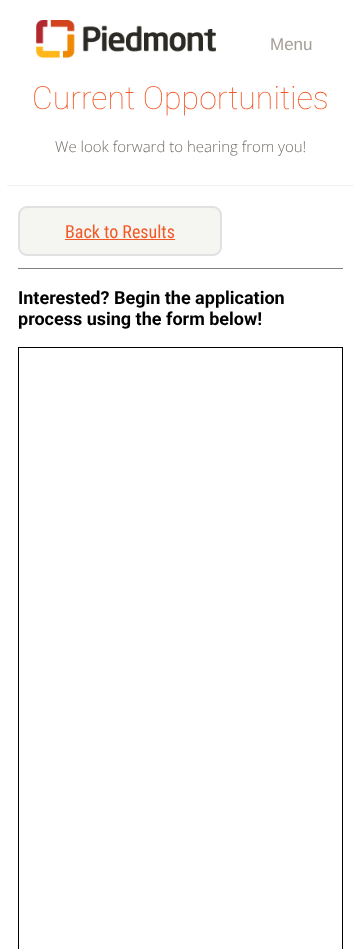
<svg xmlns="http://www.w3.org/2000/svg" width="361" height="949" viewBox="0 0 361 949">
  <rect width="100%" height="100%" fill="#ffffff"/>
  <image x="36" y="20" width="180" height="38" href="img1.png"/>
  <text x="270" y="50" font-family="Liberation Sans" font-size="17" fill="#a49e97">Menu</text>
  <text x="32" y="109" font-family="Roboto" font-size="32" font-weight="100" fill="#f25928">Current Opportunities</text>
  <text x="55" y="152" font-family="Open Sans" font-size="15" font-weight="300" fill="#736e69">We look forward to hearing from you!</text>
  <rect x="7" y="185" width="347" height="1" fill="#f3f3f3"/>
  <rect x="19" y="207" width="202" height="48" rx="8" fill="#f5f6f1" stroke="#e0e1e0" stroke-width="2"/>
  <text x="65" y="238" font-family="Roboto Condensed" font-size="18" fill="#f25928">Back to Results</text>
  <rect x="65" y="239" width="110" height="1" fill="#f25928"/>
  <rect x="18" y="268" width="325" height="1" fill="#84807b"/>
  <text x="18" y="304" font-family="Roboto" font-size="18" font-weight="bold" fill="#000000">Interested? Begin the application</text>
  <text x="18" y="325" font-family="Roboto" font-size="18" font-weight="bold" fill="#000000">process using the form below!</text>
  <rect x="18.5" y="347.5" width="324" height="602" fill="none" stroke="#000000"/>
</svg>
